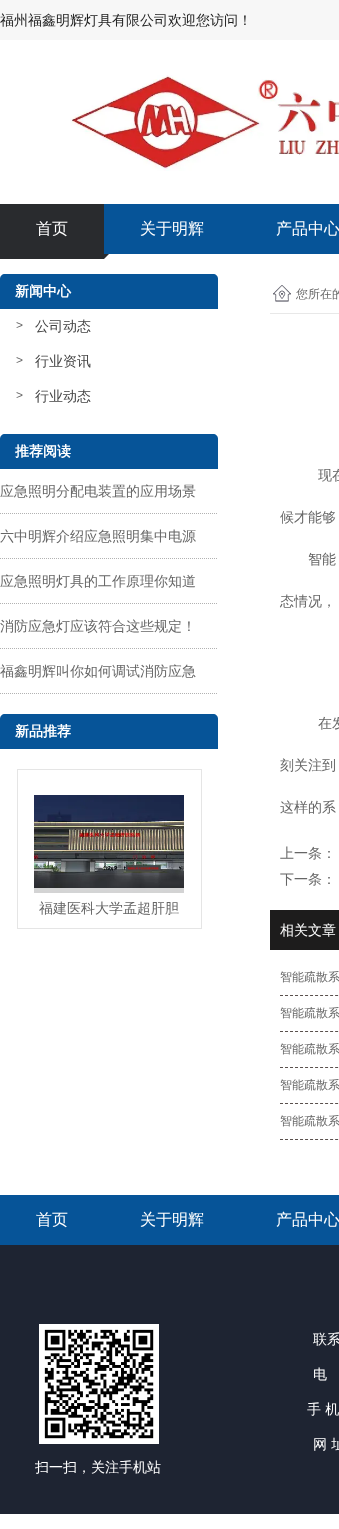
<svg xmlns="http://www.w3.org/2000/svg" width="339" height="1529" viewBox="0 0 339 1529">
  <rect width="100%" height="100%" fill="#ffffff"/>
  <rect x="0" y="0" width="339" height="40" fill="#f7f7f7"/>
  <text x="0" y="25" font-family="WenQuanYi Zen Hei" font-size="14" font-weight="500" fill="#1d1d1d">福州福鑫明辉灯具有限公司欢迎您访问！</text>
  <image x="70" y="75" width="269" height="96" href="img1.png"/>
  <rect x="104" y="204" width="235" height="50" fill="#065498"/>
  <rect x="0" y="204" width="104" height="50" fill="#292b2e"/>
  <text x="36" y="234" font-family="WenQuanYi Zen Hei" font-size="16" font-weight="500" fill="#ffffff">首页</text>
  <path d="M-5 254H109L104 259H0Z" fill="#292b2e"/>
  <text x="140" y="234" font-family="WenQuanYi Zen Hei" font-size="16" font-weight="500" fill="#ffffff">关于明辉</text>
  <text x="276" y="234" font-family="WenQuanYi Zen Hei" font-size="16" font-weight="500" fill="#ffffff">产品中心</text>
  <path d="M5 274H213C216 274 218 276 218 279V309H0V279C0 276 2 274 5 274Z" fill="#065498"/>
  <text x="15" y="296" font-family="WenQuanYi Zen Hei" font-size="14" font-weight="bold" fill="#ffffff">新闻中心</text>
  <text x="16" y="329" font-family="Liberation Sans" font-size="12" fill="#666666">&gt;</text>
  <text x="35" y="331" font-family="WenQuanYi Zen Hei" font-size="14" font-weight="500" fill="#444444">公司动态</text>
  <text x="16" y="364" font-family="Liberation Sans" font-size="12" fill="#666666">&gt;</text>
  <text x="35" y="366" font-family="WenQuanYi Zen Hei" font-size="14" font-weight="500" fill="#444444">行业资讯</text>
  <text x="16" y="399" font-family="Liberation Sans" font-size="12" fill="#666666">&gt;</text>
  <text x="35" y="401" font-family="WenQuanYi Zen Hei" font-size="14" font-weight="500" fill="#444444">行业动态</text>
  <path d="M5 434H213C216 434 218 436 218 439V469H0V439C0 436 2 434 5 434Z" fill="#065498"/>
  <text x="15" y="456" font-family="WenQuanYi Zen Hei" font-size="14" font-weight="bold" fill="#ffffff">推荐阅读</text>
  <path d="M0 513.5H218" fill="none" stroke="#b2b2b2" stroke-dasharray="1 1"/>
  <text x="0" y="496" font-family="WenQuanYi Zen Hei" font-size="14" font-weight="500" fill="#666666">应急照明分配电装置的应用场景</text>
  <path d="M0 558.5H218" fill="none" stroke="#b2b2b2" stroke-dasharray="1 1"/>
  <text x="0" y="541" font-family="WenQuanYi Zen Hei" font-size="14" font-weight="500" fill="#666666">六中明辉介绍应急照明集中电源</text>
  <path d="M0 603.5H218" fill="none" stroke="#b2b2b2" stroke-dasharray="1 1"/>
  <text x="0" y="586" font-family="WenQuanYi Zen Hei" font-size="14" font-weight="500" fill="#666666">应急照明灯具的工作原理你知道</text>
  <path d="M0 648.5H218" fill="none" stroke="#b2b2b2" stroke-dasharray="1 1"/>
  <text x="0" y="631" font-family="WenQuanYi Zen Hei" font-size="14" font-weight="500" fill="#666666">消防应急灯应该符合这些规定！</text>
  <path d="M0 693.5H218" fill="none" stroke="#b2b2b2" stroke-dasharray="1 1"/>
  <text x="0" y="676" font-family="WenQuanYi Zen Hei" font-size="14" font-weight="500" fill="#666666">福鑫明辉叫你如何调试消防应急</text>
  <path d="M5 714H213C216 714 218 716 218 719V749H0V719C0 716 2 714 5 714Z" fill="#065498"/>
  <text x="15" y="736" font-family="WenQuanYi Zen Hei" font-size="14" font-weight="bold" fill="#ffffff">新品推荐</text>
  <rect x="17.5" y="769.5" width="184" height="159" fill="none" stroke="#e5e5e5"/>
  <image x="34" y="795" width="150" height="98" href="img2.png"/>
  <rect x="34" y="888" width="150" height="5" fill="#ffffff" fill-opacity="0.8"/>
  <text x="39" y="913" font-family="WenQuanYi Zen Hei" font-size="14" font-weight="500" fill="#666666">福建医科大学孟超肝胆</text>
  <image x="273" y="285" width="18" height="17" href="img3.png"/>
  <rect x="270" y="313" width="69" height="1" fill="#e8e8e8"/>
  <text x="296" y="298" font-family="WenQuanYi Zen Hei" font-size="12" font-weight="500" fill="#666666">您所在的</text>
  <text x="318" y="480" font-family="WenQuanYi Zen Hei" font-size="14" font-weight="500" fill="#666666">现在</text>
  <text x="280" y="522" font-family="WenQuanYi Zen Hei" font-size="14" font-weight="500" fill="#666666">候才能够</text>
  <text x="308" y="564" font-family="WenQuanYi Zen Hei" font-size="14" font-weight="500" fill="#666666">智能</text>
  <text x="280" y="606" font-family="WenQuanYi Zen Hei" font-size="14" font-weight="500" fill="#666666">态情况，</text>
  <text x="318" y="728" font-family="WenQuanYi Zen Hei" font-size="14" font-weight="500" fill="#666666">在发</text>
  <text x="280" y="770" font-family="WenQuanYi Zen Hei" font-size="14" font-weight="500" fill="#666666">刻关注到</text>
  <text x="280" y="812" font-family="WenQuanYi Zen Hei" font-size="14" font-weight="500" fill="#666666">这样的系</text>
  <text x="280" y="858" font-family="WenQuanYi Zen Hei" font-size="14" font-weight="500" fill="#666666">上一条：</text>
  <text x="280" y="884" font-family="WenQuanYi Zen Hei" font-size="14" font-weight="500" fill="#666666">下一条：</text>
  <rect x="270" y="910" width="69" height="40" fill="#1d1c1c"/>
  <text x="280" y="935" font-family="WenQuanYi Zen Hei" font-size="14" font-weight="500" fill="#ffffff">相关文章</text>
  <path d="M280 995.5H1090" fill="none" stroke="#59504d" stroke-dasharray="3 2.01"/>
  <text x="280" y="981" font-family="WenQuanYi Zen Hei" font-size="12" font-weight="500" fill="#666666">智能疏散系</text>
  <path d="M280 1031.5H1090" fill="none" stroke="#59504d" stroke-dasharray="3 2.01"/>
  <text x="280" y="1017" font-family="WenQuanYi Zen Hei" font-size="12" font-weight="500" fill="#666666">智能疏散系</text>
  <path d="M280 1067.5H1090" fill="none" stroke="#59504d" stroke-dasharray="3 2.01"/>
  <text x="280" y="1053" font-family="WenQuanYi Zen Hei" font-size="12" font-weight="500" fill="#666666">智能疏散系</text>
  <path d="M280 1103.5H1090" fill="none" stroke="#59504d" stroke-dasharray="3 2.01"/>
  <text x="280" y="1089" font-family="WenQuanYi Zen Hei" font-size="12" font-weight="500" fill="#666666">智能疏散系</text>
  <path d="M280 1139.5H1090" fill="none" stroke="#59504d" stroke-dasharray="3 2.01"/>
  <text x="280" y="1125" font-family="WenQuanYi Zen Hei" font-size="12" font-weight="500" fill="#666666">智能疏散系</text>
  <rect x="0" y="1245" width="339" height="269" fill="#1e2432"/>
  <rect x="0" y="1195" width="339" height="50" fill="#065498"/>
  <text x="36" y="1225" font-family="WenQuanYi Zen Hei" font-size="16" font-weight="500" fill="#ffffff">首页</text>
  <text x="140" y="1225" font-family="WenQuanYi Zen Hei" font-size="16" font-weight="500" fill="#ffffff">关于明辉</text>
  <text x="276" y="1225" font-family="WenQuanYi Zen Hei" font-size="16" font-weight="500" fill="#ffffff">产品中心</text>
  <text x="313" y="1344" font-family="WenQuanYi Zen Hei" font-size="14" font-weight="500" fill="#ffffff">联系</text>
  <text x="313" y="1379" font-family="WenQuanYi Zen Hei" font-size="14" font-weight="500" fill="#ffffff">电</text>
  <text x="307" y="1414" font-family="WenQuanYi Zen Hei" font-size="14" font-weight="500" fill="#ffffff">手 机</text>
  <text x="313" y="1449" font-family="WenQuanYi Zen Hei" font-size="14" font-weight="500" fill="#ffffff">网 址</text>
  <image x="39" y="1324" width="120" height="120" href="img4.png"/>
  <text x="35" y="1472" font-family="WenQuanYi Zen Hei" font-size="14" font-weight="500" fill="#ffffff">扫一扫，关注手机站</text>
</svg>
